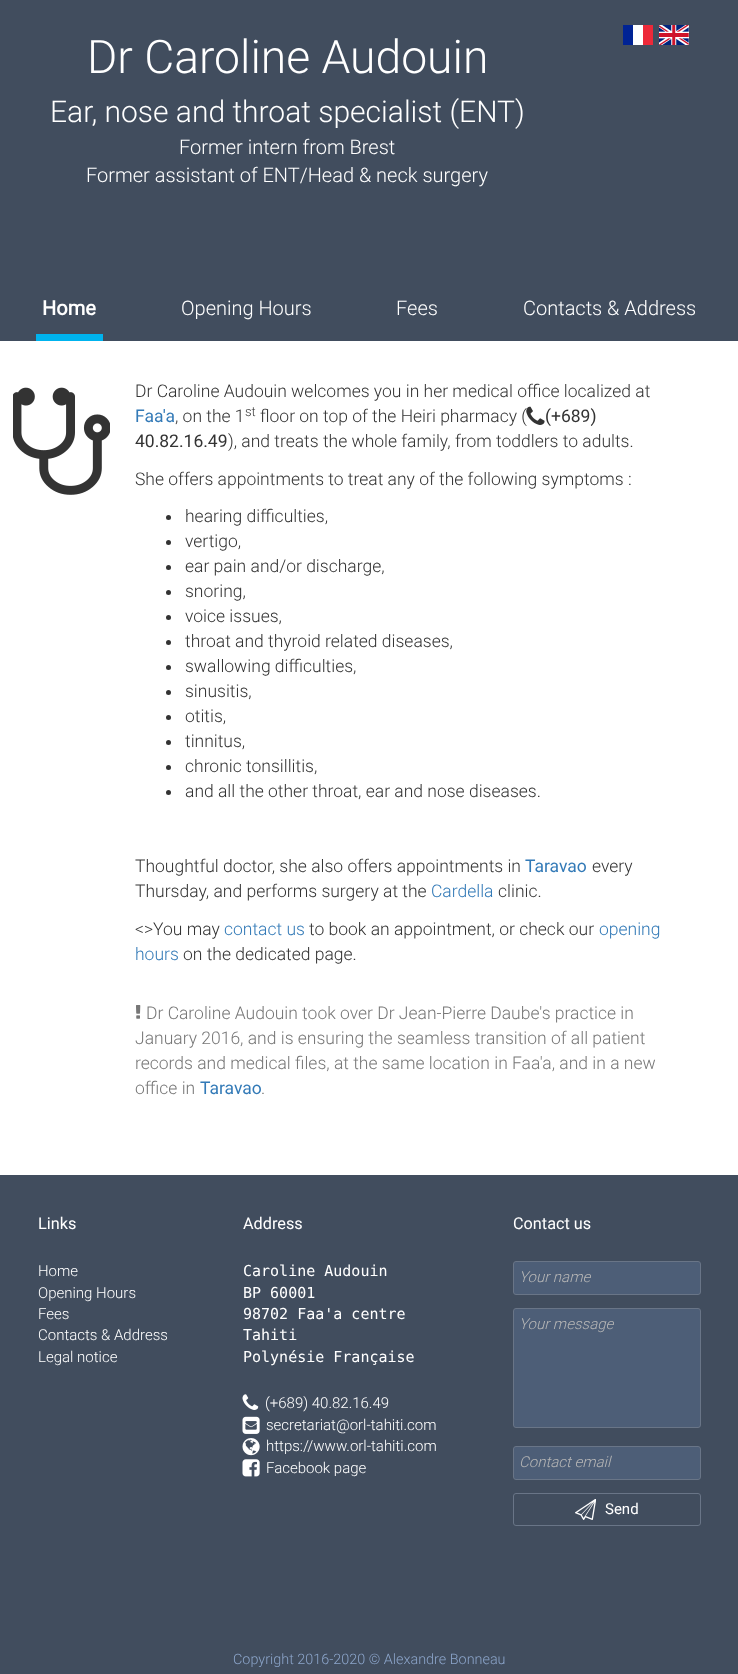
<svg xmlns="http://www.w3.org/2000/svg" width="738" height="1674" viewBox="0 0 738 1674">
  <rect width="100%" height="100%" fill="#ffffff"/>
  <rect x="0" y="0" width="738" height="341" fill="#414d5e"/>
  <rect x="623" y="25" width="10" height="20" fill="#002395"/>
  <rect x="633" y="25" width="10" height="20" fill="#ffffff"/>
  <rect x="643" y="25" width="10" height="20" fill="#ed2939"/>
  <image x="659" y="25" width="30" height="20" href="img1.png"/>
  <text x="87" y="73" font-family="Roboto" font-size="46.25" font-weight="300" fill="#ffffff">Dr Caroline Audouin</text>
  <text x="50" y="122" font-family="Roboto" font-size="30" font-weight="300" fill="#ffffff">Ear, nose and throat specialist (ENT)</text>
  <text x="179" y="154" font-family="Roboto" font-size="20" font-weight="300" fill="#ffffff">Former intern from Brest</text>
  <text x="86" y="182" font-family="Roboto" font-size="20" font-weight="300" fill="#ffffff">Former assistant of ENT/Head &amp; neck surgery</text>
  <text x="42" y="315" font-family="Roboto" font-size="20" font-weight="bold" fill="#ffffff">Home</text>
  <rect x="36" y="334" width="67" height="7" fill="#00b3ee"/>
  <text x="181" y="315" font-family="Roboto" font-size="20" font-weight="300" fill="#ffffff">Opening Hours</text>
  <text x="396" y="315" font-family="Roboto" font-size="20" font-weight="300" fill="#ffffff">Fees</text>
  <text x="523" y="315" font-family="Roboto" font-size="20" font-weight="300" fill="#ffffff">Contacts &amp; Address</text>
  <image x="13" y="387" width="97" height="108" href="img2.png"/>
  <text x="135" y="397" font-family="Roboto" font-size="17.5" font-weight="300" fill="#333333">Dr Caroline Audouin welcomes you in her medical office localized at</text>
  <text x="245" y="416" font-family="Roboto" font-size="13" font-weight="300" fill="#333333">st</text>
  <text x="260" y="422" font-family="Roboto" font-size="17.5" font-weight="300" fill="#333333">floor on top of the Heiri pharmacy (</text>
  <image x="526" y="406" width="19" height="19" href="img3.png"/>
  <text x="545" y="422" font-family="Roboto" font-size="17.5" fill="#333333">(+689)</text>
  <text x="135" y="447" font-family="Roboto" font-size="17.5" fill="#333333">40.82.16.49</text>
  <text x="135" y="422" font-family="Roboto" font-size="17.5" fill="#337ab7">Faa'a</text>
  <text x="175" y="422" font-family="Roboto" font-size="17.5" font-weight="300" fill="#333333">, on the 1</text>
  <text x="228" y="447" font-family="Roboto" font-size="17.5" font-weight="300" fill="#333333">), and treats the whole family, from toddlers to adults.</text>
  <text x="135" y="485" font-family="Roboto" font-size="17.5" font-weight="300" fill="#333333">She offers appointments to treat any of the following symptoms :</text>
  <circle cx="168.5" cy="517.5" r="2.5" fill="#333333"/>
  <text x="185" y="522" font-family="Roboto" font-size="17.5" font-weight="300" fill="#333333">hearing difficulties,</text>
  <circle cx="168.5" cy="542.5" r="2.5" fill="#333333"/>
  <text x="185" y="547" font-family="Roboto" font-size="17.5" font-weight="300" fill="#333333">vertigo,</text>
  <circle cx="168.5" cy="567.5" r="2.5" fill="#333333"/>
  <text x="185" y="572" font-family="Roboto" font-size="17.5" font-weight="300" fill="#333333">ear pain and/or discharge,</text>
  <circle cx="168.5" cy="592.5" r="2.5" fill="#333333"/>
  <text x="185" y="597" font-family="Roboto" font-size="17.5" font-weight="300" fill="#333333">snoring,</text>
  <circle cx="168.5" cy="617.5" r="2.5" fill="#333333"/>
  <text x="185" y="622" font-family="Roboto" font-size="17.5" font-weight="300" fill="#333333">voice issues,</text>
  <circle cx="168.5" cy="642.5" r="2.5" fill="#333333"/>
  <text x="185" y="647" font-family="Roboto" font-size="17.5" font-weight="300" fill="#333333">throat and thyroid related diseases,</text>
  <circle cx="168.5" cy="667.5" r="2.5" fill="#333333"/>
  <text x="185" y="672" font-family="Roboto" font-size="17.5" font-weight="300" fill="#333333">swallowing difficulties,</text>
  <circle cx="168.5" cy="692.5" r="2.5" fill="#333333"/>
  <text x="185" y="697" font-family="Roboto" font-size="17.5" font-weight="300" fill="#333333">sinusitis,</text>
  <circle cx="168.5" cy="717.5" r="2.5" fill="#333333"/>
  <text x="185" y="722" font-family="Roboto" font-size="17.5" font-weight="300" fill="#333333">otitis,</text>
  <circle cx="168.5" cy="742.5" r="2.5" fill="#333333"/>
  <text x="185" y="747" font-family="Roboto" font-size="17.5" font-weight="300" fill="#333333">tinnitus,</text>
  <circle cx="168.5" cy="767.5" r="2.5" fill="#333333"/>
  <text x="185" y="772" font-family="Roboto" font-size="17.5" font-weight="300" fill="#333333">chronic tonsillitis,</text>
  <circle cx="168.5" cy="792.5" r="2.5" fill="#333333"/>
  <text x="185" y="797" font-family="Roboto" font-size="17.5" font-weight="300" fill="#333333">and all the other throat, ear and nose diseases.</text>
  <text x="135" y="872" font-family="Roboto" font-size="17.5" font-weight="300" fill="#333333">Thoughtful doctor, she also offers appointments in</text>
  <text x="525" y="872" font-family="Roboto" font-size="17.5" fill="#337ab7">Taravao</text>
  <text x="592" y="872" font-family="Roboto" font-size="17.5" font-weight="300" fill="#333333">every</text>
  <text x="135" y="897" font-family="Roboto" font-size="17.5" font-weight="300" fill="#333333">Thursday, and performs surgery at the</text>
  <text x="431" y="897" font-family="Roboto" font-size="17.5" font-weight="300" fill="#337ab7">Cardella</text>
  <text x="498" y="897" font-family="Roboto" font-size="17.5" font-weight="300" fill="#333333">clinic.</text>
  <text x="135" y="935" font-family="Roboto" font-size="17.5" font-weight="300" fill="#333333">&lt;&gt;You may</text>
  <text x="224" y="935" font-family="Roboto" font-size="17.5" font-weight="300" fill="#337ab7">contact us</text>
  <text x="309" y="935" font-family="Roboto" font-size="17.5" font-weight="300" fill="#333333">to book an appointment, or check our</text>
  <text x="599" y="935" font-family="Roboto" font-size="17.5" font-weight="300" fill="#337ab7">opening</text>
  <text x="135" y="960" font-family="Roboto" font-size="17.5" font-weight="300" fill="#337ab7">hours</text>
  <text x="183" y="960" font-family="Roboto" font-size="17.5" font-weight="300" fill="#333333">on the dedicated page.</text>
  <image x="136" y="1005" width="5" height="14" href="img4.png"/>
  <text x="146" y="1019" font-family="Roboto" font-size="17.5" font-weight="300" fill="#777777">Dr Caroline Audouin took over Dr Jean-Pierre Daube's practice in</text>
  <text x="135" y="1044" font-family="Roboto" font-size="17.5" font-weight="300" fill="#777777">January 2016, and is ensuring the seamless transition of all patient</text>
  <text x="135" y="1069" font-family="Roboto" font-size="17.5" font-weight="300" fill="#777777">records and medical files, at the same location in Faa'a, and in a new</text>
  <text x="135" y="1094" font-family="Roboto" font-size="17.5" font-weight="300" fill="#777777">office in</text>
  <text x="200" y="1094" font-family="Roboto" font-size="17.5" fill="#337ab7">Taravao</text>
  <text x="261" y="1094" font-family="Roboto" font-size="17.5" font-weight="300" fill="#777777">.</text>
  <rect x="0" y="1175" width="738" height="499" fill="#414d5e"/>
  <text x="38" y="1229" font-family="Roboto" font-size="16.25" fill="#ffffff">Links</text>
  <text x="38" y="1276" font-family="Roboto" font-size="15" font-weight="300" fill="#ffffff">Home</text>
  <text x="38" y="1298" font-family="Roboto" font-size="15" font-weight="300" fill="#ffffff">Opening Hours</text>
  <text x="38" y="1319" font-family="Roboto" font-size="15" font-weight="300" fill="#ffffff">Fees</text>
  <text x="38" y="1340" font-family="Roboto" font-size="15" font-weight="300" fill="#ffffff">Contacts &amp; Address</text>
  <text x="38" y="1362" font-family="Roboto" font-size="15" font-weight="300" fill="#ffffff">Legal notice</text>
  <text x="243" y="1229" font-family="Roboto" font-size="16.25" fill="#ffffff">Address</text>
  <text x="243" y="1276" font-family="DejaVu Sans Mono" font-size="15" fill="#ffffff">Caroline Audouin</text>
  <text x="243" y="1298" font-family="DejaVu Sans Mono" font-size="15" fill="#ffffff">BP 60001</text>
  <text x="243" y="1319" font-family="DejaVu Sans Mono" font-size="15" fill="#ffffff">98702 Faa'a centre</text>
  <text x="243" y="1340" font-family="DejaVu Sans Mono" font-size="15" fill="#ffffff">Tahiti</text>
  <text x="243" y="1362" font-family="DejaVu Sans Mono" font-size="15" fill="#ffffff">Polynésie Française</text>
  <image x="242" y="1394" width="17" height="16" href="img5.png"/>
  <text x="265" y="1408" font-family="Roboto" font-size="15" font-weight="300" fill="#ffffff">(+689) 40.82.16.49</text>
  <image x="242" y="1416" width="18" height="18" href="img6.png"/>
  <text x="266" y="1430" font-family="Roboto" font-size="15" font-weight="300" fill="#ffffff">secretariat@orl-tahiti.com</text>
  <image x="242" y="1438" width="18" height="18" href="img7.png"/>
  <text x="266" y="1451" font-family="Roboto" font-size="15" font-weight="300" fill="#ffffff">https://www.orl-tahiti.com</text>
  <image x="242" y="1459" width="18" height="18" href="img8.png"/>
  <text x="266" y="1473" font-family="Roboto" font-size="15" font-weight="300" fill="#ffffff">Facebook page</text>
  <text x="513" y="1229" font-family="Roboto" font-size="16.25" fill="#ffffff">Contact us</text>
  <rect x="513.5" y="1261.5" width="187" height="33" rx="2.5" fill="#4d5e77" stroke="#697587"/>
  <text x="519" y="1282" font-family="Roboto" font-size="15" font-weight="300" font-style="italic" fill="#b6b6b6">Your name</text>
  <rect x="513.5" y="1308.5" width="187" height="119" rx="2.5" fill="#4d5e77" stroke="#697587"/>
  <text x="519" y="1329" font-family="Roboto" font-size="15" font-weight="300" font-style="italic" fill="#b6b6b6">Your message</text>
  <rect x="513.5" y="1446.5" width="187" height="33" rx="2.5" fill="#4d5e77" stroke="#697587"/>
  <text x="519" y="1467" font-family="Roboto" font-size="15" font-weight="300" font-style="italic" fill="#b6b6b6">Contact email</text>
  <rect x="513.5" y="1493.5" width="187" height="32" rx="2.5" fill="none" stroke="#697587"/>
  <image x="575" y="1499" width="21" height="21" href="img9.png"/>
  <text x="605" y="1514" font-family="Roboto" font-size="15" fill="#ffffff">Send</text>
  <text x="233" y="1664" font-family="Roboto" font-size="14.4" font-weight="300" fill="#8ca5ca">Copyright 2016-2020 © Alexandre Bonneau</text>
</svg>
